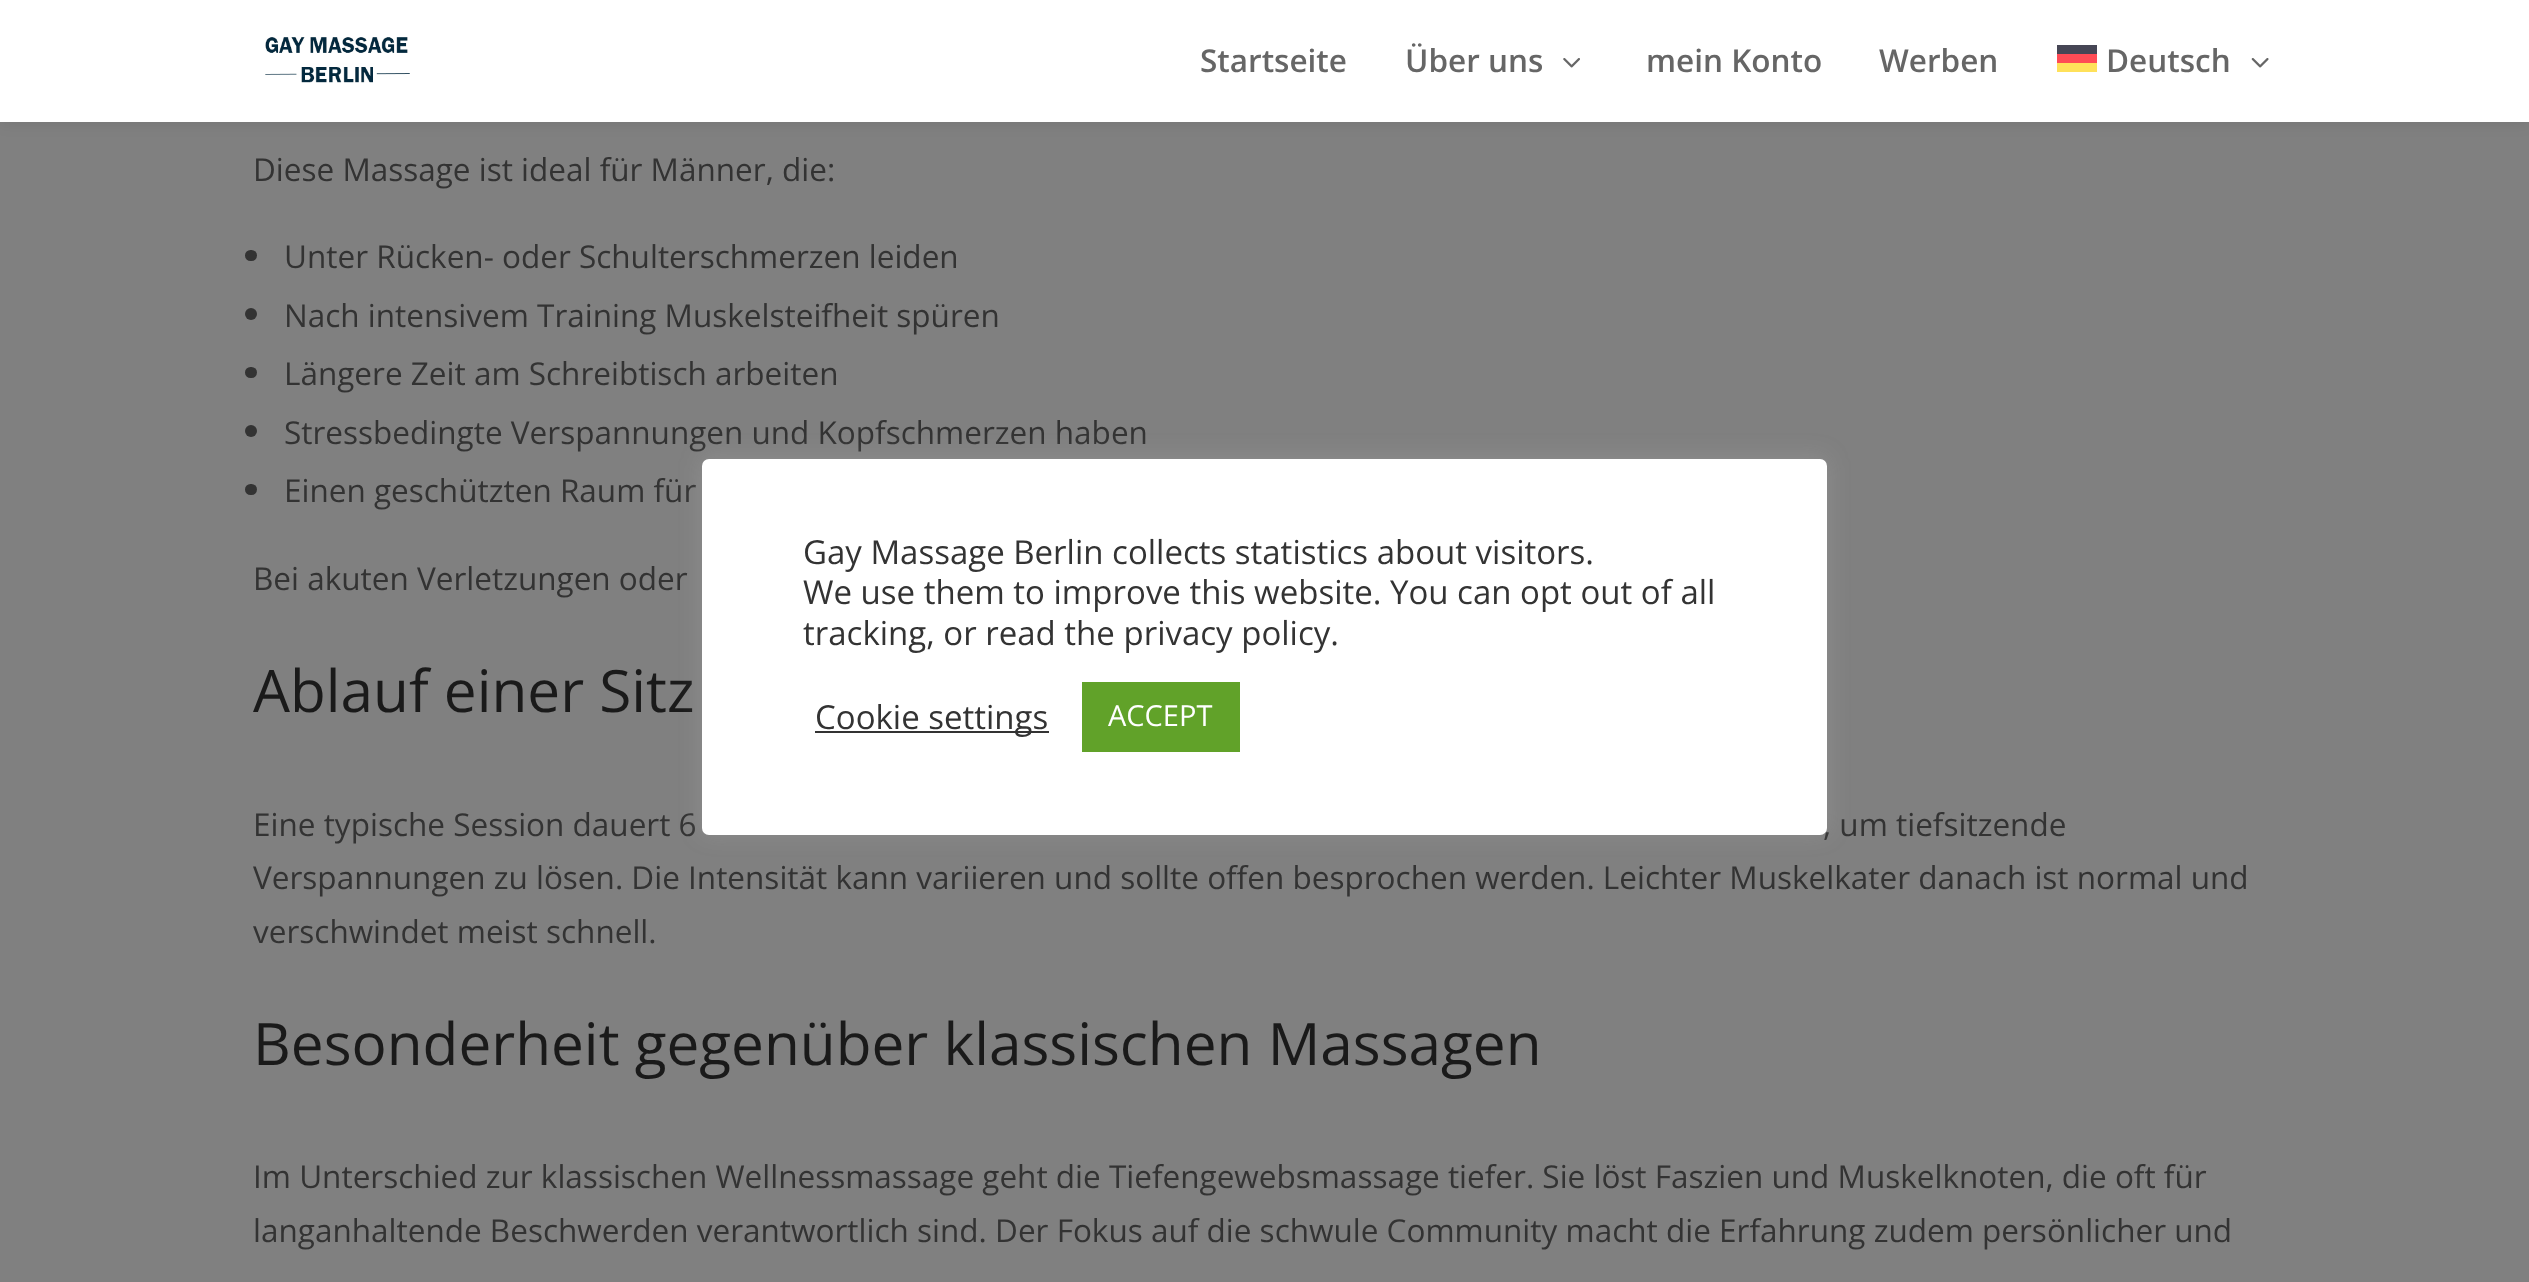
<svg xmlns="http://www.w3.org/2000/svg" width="2529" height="1282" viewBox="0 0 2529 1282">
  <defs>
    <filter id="blur1" x="-50%" y="-200%" width="200%" height="500%"><feGaussianBlur stdDeviation="8"/></filter>
    <filter id="blur2" x="-50%" y="-200%" width="200%" height="500%"><feGaussianBlur stdDeviation="11"/></filter>
  </defs>
  <rect width="100%" height="100%" fill="#808080"/>
  <rect x="0" y="0" width="2529" height="122" fill="#000000" fill-opacity="0.1" filter="url(#blur1)"/>
  <rect x="0" y="0" width="2529" height="122" fill="#ffffff"/>
  <image x="265" y="37" width="145" height="46" href="img1.png"/>
  <text x="1200" y="72" font-family="Open Sans" font-size="31.5" font-weight="600" fill="#666666">Startseite</text>
  <text x="1405" y="72" font-family="Open Sans" font-size="31.5" font-weight="600" fill="#666666">Über uns</text>
  <image x="1563" y="58" width="17" height="10" href="img2.png"/>
  <text x="1646" y="72" font-family="Open Sans" font-size="31.5" font-weight="600" fill="#666666">mein Konto</text>
  <text x="1879" y="72" font-family="Open Sans" font-size="31.5" font-weight="600" fill="#666666">Werben</text>
  <rect x="2057" y="45" width="40" height="9" fill="#464655"/>
  <text x="2106" y="72" font-family="Open Sans" font-size="31.5" font-weight="600" fill="#666666">Deutsch</text>
  <rect x="2057" y="54" width="40" height="9" fill="#ff4b55"/>
  <image x="2251" y="58" width="18" height="10" href="img3.png"/>
  <rect x="2057" y="63" width="40" height="9" fill="#ffe15a"/>
  <text x="253" y="181" font-family="Open Sans" font-size="31.5" fill="#333333">Diese Massage ist ideal für Männer, die:</text>
  <rect x="245" y="250" width="12" height="11" rx="5.5" fill="#333333"/>
  <text x="284" y="268" font-family="Open Sans" font-size="31.5" fill="#333333">Unter Rücken- oder Schulterschmerzen leiden</text>
  <circle cx="251" cy="314" r="6" fill="#333333"/>
  <text x="284" y="327" font-family="Open Sans" font-size="31.5" fill="#333333">Nach intensivem Training Muskelsteifheit spüren</text>
  <rect x="245" y="367" width="12" height="11" rx="5.5" fill="#333333"/>
  <text x="284" y="385" font-family="Open Sans" font-size="31.5" fill="#333333">Längere Zeit am Schreibtisch arbeiten</text>
  <circle cx="251" cy="431" r="6" fill="#333333"/>
  <text x="284" y="444" font-family="Open Sans" font-size="31.5" fill="#333333">Stressbedingte Verspannungen und Kopfschmerzen haben</text>
  <rect x="245" y="484" width="12" height="11" rx="5.5" fill="#333333"/>
  <text x="284" y="502" font-family="Open Sans" font-size="31.5" fill="#333333">Einen geschützten Raum für</text>
  <text x="253" y="590" font-family="Open Sans" font-size="31.5" fill="#333333">Bei akuten Verletzungen oder</text>
  <text x="253" y="712" font-family="Open Sans" font-size="58.5" fill="#1a1a1a">Ablauf einer Sitz</text>
  <text x="253" y="836" font-family="Open Sans" font-size="31.5" fill="#333333">Eine typische Session dauert 6</text>
  <text x="1823" y="836" font-family="Open Sans" font-size="31.5" fill="#333333">, um tiefsitzende</text>
  <text x="253" y="889" font-family="Open Sans" font-size="31.5" fill="#333333">Verspannungen zu lösen. Die Intensität kann variieren und sollte offen besprochen werden. Leichter Muskelkater danach ist normal und</text>
  <text x="253" y="943" font-family="Open Sans" font-size="31.5" fill="#333333">verschwindet meist schnell.</text>
  <text x="253" y="1065" font-family="Open Sans" font-size="58.5" fill="#1a1a1a">Besonderheit gegenüber klassischen Massagen</text>
  <text x="253" y="1188" font-family="Open Sans" font-size="31.5" fill="#333333">Im Unterschied zur klassischen Wellnessmassage geht die Tiefengewebsmassage tiefer. Sie löst Faszien und Muskelknoten, die oft für</text>
  <text x="253" y="1242" font-family="Open Sans" font-size="31.5" fill="#333333">langanhaltende Beschwerden verantwortlich sind. Der Fokus auf die schwule Community macht die Erfahrung zudem persönlicher und</text>
  <rect x="702" y="457" width="1125" height="376" rx="7" fill="#acabab" fill-opacity="0.3" filter="url(#blur2)"/>
  <rect x="702" y="459" width="1125" height="376" rx="7" fill="#ffffff"/>
  <text x="803" y="564" font-family="Open Sans" font-size="33" fill="#333333">Gay Massage Berlin collects statistics about visitors.</text>
  <text x="803" y="604" font-family="Open Sans" font-size="33" fill="#333333">We use them to improve this website. You can opt out of all</text>
  <text x="803" y="645" font-family="Open Sans" font-size="33" fill="#333333">tracking, or read the privacy policy.</text>
  <rect x="815" y="731" width="234" height="2" fill="#333333"/>
  <text x="815" y="729" font-family="Open Sans" font-size="33" fill="#333333">Cookie settings</text>
  <rect x="1082" y="682" width="158" height="70" fill="#61a229"/>
  <text x="1108" y="726" font-family="Open Sans" font-size="29" fill="#ffffff">ACCEPT</text>
</svg>
